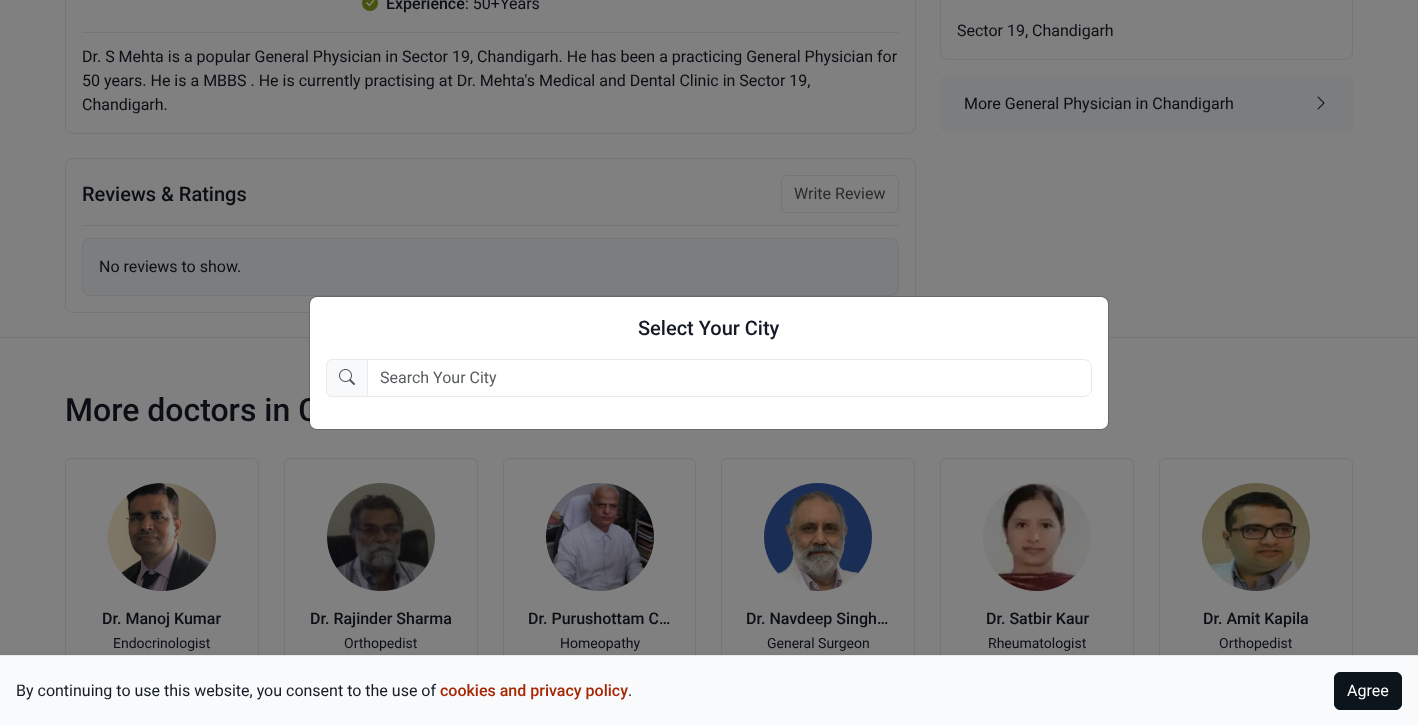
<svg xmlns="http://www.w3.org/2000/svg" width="1418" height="726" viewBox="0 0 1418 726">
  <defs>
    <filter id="blur1" x="-50%" y="-200%" width="200%" height="500%"><feGaussianBlur stdDeviation="8"/></filter>
  </defs>
  <rect width="100%" height="100%" fill="#808080"/>
  <rect x="65.5" y="-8.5" width="850" height="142" rx="7.5" fill="none" stroke="#747576"/>
  <image x="362" y="0" width="16" height="11" href="img1.png"/>
  <text x="386" y="9" font-family="Roboto" font-size="16" font-weight="500" fill="#0b0e13">Experience</text>
  <text x="465" y="9" font-family="Roboto" font-size="16" fill="#0b0e13">: 50+Years</text>
  <rect x="82" y="32" width="817" height="1" fill="#747576"/>
  <text x="82" y="62" font-family="Roboto" font-size="16" fill="#0b0e13">Dr. S Mehta is a popular General Physician in Sector 19, Chandigarh. He has been a practicing General Physician for</text>
  <text x="82" y="86" font-family="Roboto" font-size="16" fill="#0b0e13">50 years. He is a MBBS . He is currently practising at Dr. Mehta's Medical and Dental Clinic in Sector 19,</text>
  <text x="82" y="110" font-family="Roboto" font-size="16" fill="#0b0e13">Chandigarh.</text>
  <rect x="65.5" y="158.5" width="850" height="154" rx="7.5" fill="none" stroke="#747576"/>
  <text x="82" y="201" font-family="Roboto" font-size="20" font-weight="500" fill="#0b0e13">Reviews &amp; Ratings</text>
  <rect x="781.5" y="175.5" width="117" height="37" rx="5.5" fill="none" stroke="#747576"/>
  <text x="794" y="199" font-family="Roboto" font-size="16" fill="#2b2b2b">Write Review</text>
  <rect x="82" y="225" width="817" height="1" fill="#747576"/>
  <rect x="82.5" y="238.5" width="816" height="57" rx="7.5" fill="#7c7d7e" stroke="#747576"/>
  <text x="99" y="272" font-family="Roboto" font-size="16" fill="#0b0e13">No reviews to show.</text>
  <rect x="940.5" y="-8.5" width="412" height="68" rx="7.5" fill="none" stroke="#747576"/>
  <text x="957" y="36" font-family="Roboto" font-size="16" fill="#0b0e13">Sector 19, Chandigarh</text>
  <rect x="940" y="76" width="413" height="56" rx="6" fill="#7c7d7e"/>
  <text x="964" y="109" font-family="Roboto" font-size="16" fill="#0b0e13">More General Physician in Chandigarh</text>
  <image x="1317" y="96" width="8" height="14" href="img2.png"/>
  <rect x="0" y="337" width="1418" height="1" fill="#747576"/>
  <text x="65" y="421" font-family="Roboto" font-size="32" font-weight="500" fill="#0b0e13">More doctors in C</text>
  <rect x="65.5" y="458.5" width="193" height="253" rx="5.5" fill="none" stroke="#747576"/>
  <image x="108" y="483" width="108" height="108" href="img3.png"/>
  <text x="102" y="624" font-family="Roboto" font-size="16" font-weight="500" fill="#0b0e13">Dr. Manoj Kumar</text>
  <text x="113" y="648" font-family="Roboto" font-size="14" fill="#0b0e13">Endocrinologist</text>
  <rect x="284.5" y="458.5" width="193" height="253" rx="5.5" fill="none" stroke="#747576"/>
  <image x="327" y="483" width="108" height="108" href="img4.png"/>
  <text x="310" y="624" font-family="Roboto" font-size="16" font-weight="500" fill="#0b0e13">Dr. Rajinder Sharma</text>
  <text x="344" y="648" font-family="Roboto" font-size="14" fill="#0b0e13">Orthopedist</text>
  <rect x="503.5" y="458.5" width="192" height="253" rx="5.5" fill="none" stroke="#747576"/>
  <image x="546" y="483" width="108" height="108" href="img5.png"/>
  <text x="528" y="624" font-family="Roboto" font-size="16" font-weight="500" fill="#0b0e13">Dr. Purushottam C…</text>
  <text x="560" y="648" font-family="Roboto" font-size="14" fill="#0b0e13">Homeopathy</text>
  <rect x="721.5" y="458.5" width="193" height="253" rx="5.5" fill="none" stroke="#747576"/>
  <image x="764" y="483" width="108" height="108" href="img6.png"/>
  <text x="746" y="624" font-family="Roboto" font-size="16" font-weight="500" fill="#0b0e13">Dr. Navdeep Singh…</text>
  <text x="767" y="648" font-family="Roboto" font-size="14" fill="#0b0e13">General Surgeon</text>
  <rect x="940.5" y="458.5" width="193" height="253" rx="5.5" fill="none" stroke="#747576"/>
  <image x="983" y="483" width="108" height="108" href="img7.png"/>
  <text x="986" y="624" font-family="Roboto" font-size="16" font-weight="500" fill="#0b0e13">Dr. Satbir Kaur</text>
  <text x="988" y="648" font-family="Roboto" font-size="14" fill="#0b0e13">Rheumatologist</text>
  <rect x="1159.5" y="458.5" width="193" height="253" rx="5.5" fill="none" stroke="#747576"/>
  <image x="1202" y="483" width="108" height="108" href="img8.png"/>
  <text x="1203" y="624" font-family="Roboto" font-size="16" font-weight="500" fill="#0b0e13">Dr. Amit Kapila</text>
  <text x="1219" y="648" font-family="Roboto" font-size="14" fill="#0b0e13">Orthopedist</text>
  <rect x="310" y="297" width="798" height="132" rx="7" fill="#ffffff"/>
  <rect x="309.5" y="296.5" width="799" height="133" rx="7.5" fill="none" stroke="#000000" stroke-opacity="0.18"/>
  <text x="638" y="335" font-family="Roboto" font-size="20" font-weight="500" fill="#151b26">Select Your City</text>
  <path d="M332 359.5H367.5V396.5H332C329 396.5 326.5 394 326.5 391V365C326.5 362 329 359.5 332 359.5Z" fill="#f8f9fa" stroke="#e8eaec"/>
  <image x="339" y="369" width="16" height="16" href="img9.png"/>
  <path d="M367.5 359.5H1084C1088 359.5 1091.5 363 1091.5 367V389C1091.5 393 1088 396.5 1084 396.5H367.5Z" fill="none" stroke="#e8eaec"/>
  <text x="380" y="383" font-family="Roboto" font-size="16" fill="#595c5f">Search Your City</text>
  <rect x="0" y="663" width="1418" height="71" fill="#000000" fill-opacity="0.15" filter="url(#blur1)"/>
  <rect x="0" y="656" width="1418" height="70" fill="#f8fafc"/>
  <rect x="0" y="655" width="1418" height="1" fill="#e8eaec"/>
  <text x="16" y="696" font-family="Roboto" font-size="16" fill="#151b26">By continuing to use this website, you consent to the use of</text>
  <text x="440" y="696" font-family="Roboto" font-size="16" font-weight="500" fill="#a72703">cookies and privacy policy</text>
  <text x="628" y="696" font-family="Roboto" font-size="16" fill="#151b26">.</text>
  <rect x="1334.5" y="672.5" width="67" height="37" rx="5.5" fill="#0c141c" stroke="#0c141c"/>
  <text x="1347" y="696" font-family="Roboto" font-size="16" fill="#ffffff">Agree</text>
</svg>
